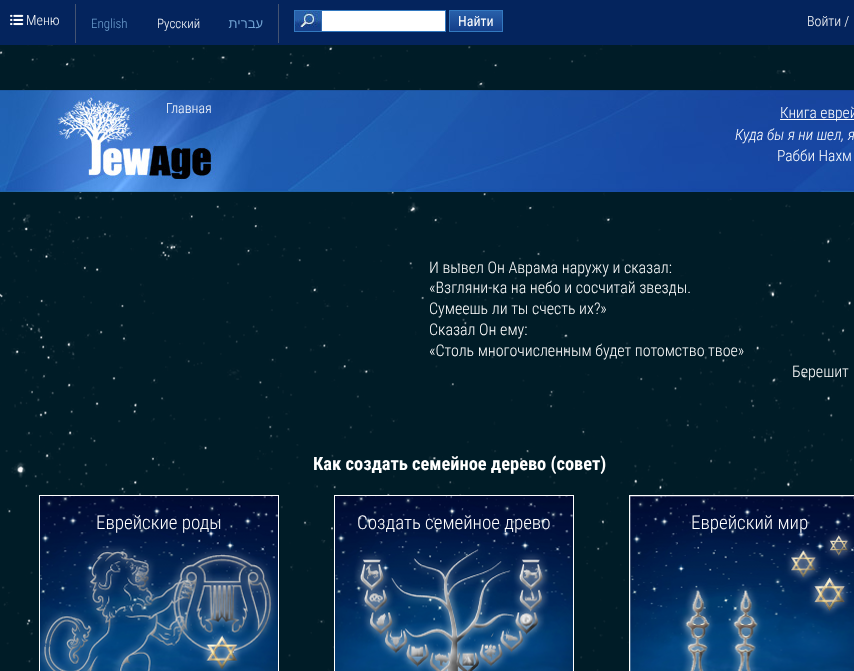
<svg xmlns="http://www.w3.org/2000/svg" width="854" height="671" viewBox="0 0 854 671">
  <defs>
    <linearGradient id="g1" gradientUnits="userSpaceOnUse" x1="476" y1="11" x2="476" y2="31"><stop offset="0" stop-color="#2860aa"/><stop offset="1" stop-color="#153f89"/></linearGradient>
  </defs>
  <rect width="100%" height="100%" fill="#001c27"/>
  <rect x="0" y="0" width="854" height="45" fill="#04245d"/>
  <image x="10" y="14" width="14" height="12" href="img1.png"/>
  <text x="26" y="25" font-family="Roboto Condensed" font-size="14" font-weight="300" fill="#ffffff">Меню</text>
  <rect x="278" y="4" width="1" height="39" fill="#445371"/>
  <rect x="75" y="4" width="1" height="39" fill="#445371"/>
  <text x="91" y="28" font-family="Roboto Condensed" font-size="13" font-weight="300" fill="#6fa1d1">English</text>
  <text x="157" y="28" font-family="Roboto Condensed" font-size="13" font-weight="300" fill="#ffffff">Русский</text>
  <text x="263" y="28" font-family="Liberation Sans" font-size="13" direction="rtl" fill="#6fa1d1">עברית</text>
  <rect x="322" y="11" width="123" height="20" fill="#ffffff"/>
  <image x="295" y="11" width="27" height="20" href="img2.png"/>
  <rect x="294.5" y="10.5" width="151" height="21" fill="none" stroke="#3379c0"/>
  <rect x="450" y="11" width="52" height="20" fill="url(#g1)"/>
  <rect x="449.5" y="10.5" width="53" height="21" fill="none" stroke="#3379c0"/>
  <text x="458" y="26" font-family="Roboto Condensed" font-size="14" fill="#ffffff">Найти</text>
  <text x="807" y="26" font-family="Roboto Condensed" font-size="14" font-weight="300" fill="#ffffff">Войти /</text>
  <image x="0" y="45" width="854" height="626" href="img7.png"/>
  <image x="0" y="90" width="854" height="102" href="img3.png"/>
  <text x="166" y="113" font-family="Roboto Condensed" font-size="14" font-weight="300" fill="#ffffff">Главная</text>
  <rect x="780" y="119" width="74" height="1" fill="#ffffff"/>
  <text x="780" y="118" font-family="Roboto Condensed" font-size="15.5" font-weight="300" fill="#ffffff">Книга еврей</text>
  <text x="735" y="140" font-family="Roboto Condensed" font-size="15.5" font-weight="300" font-style="italic" fill="#ffffff">Куда бы я ни шел, я</text>
  <text x="777" y="161" font-family="Roboto Condensed" font-size="15.5" font-weight="300" fill="#ffffff">Рабби Нахм</text>
  <text x="429" y="273" font-family="Roboto Condensed" font-size="16" font-weight="300" fill="#ffffff">И вывел Он Аврама наружу и сказал:</text>
  <text x="429" y="293" font-family="Roboto Condensed" font-size="16" font-weight="300" fill="#ffffff">«Взгляни-ка на небо и сосчитай звезды.</text>
  <text x="429" y="314" font-family="Roboto Condensed" font-size="16" font-weight="300" fill="#ffffff">Сумеешь ли ты счесть их?»</text>
  <text x="429" y="335" font-family="Roboto Condensed" font-size="16" font-weight="300" fill="#ffffff">Сказал Он ему:</text>
  <text x="429" y="356" font-family="Roboto Condensed" font-size="16" font-weight="300" fill="#ffffff">«Столь многочисленным будет потомство твое»</text>
  <text x="792" y="377" font-family="Roboto Condensed" font-size="16" font-weight="300" fill="#ffffff">Берешит</text>
  <text x="313" y="470" font-family="Roboto Condensed" font-size="18.4" font-weight="bold" fill="#ffffff">Как создать семейное дерево (совет)</text>
  <image x="40" y="496" width="238" height="175" href="img4.png"/>
  <rect x="39.5" y="495.5" width="239" height="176" fill="none" stroke="#ffffff"/>
  <text x="96" y="529" font-family="Roboto Condensed" font-size="19" font-weight="300" fill="#ffffff">Еврейские роды</text>
  <image x="335" y="496" width="238" height="175" href="img5.png"/>
  <rect x="334.5" y="495.5" width="239" height="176" fill="none" stroke="#ffffff"/>
  <text x="357" y="529" font-family="Roboto Condensed" font-size="19" font-weight="300" fill="#ffffff">Создать семейное древо</text>
  <image x="630" y="496" width="224" height="175" href="img6.png"/>
  <rect x="629.5" y="495.5" width="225" height="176" fill="none" stroke="#ffffff"/>
  <text x="691" y="529" font-family="Roboto Condensed" font-size="19" font-weight="300" fill="#ffffff">Еврейский мир</text>
</svg>
